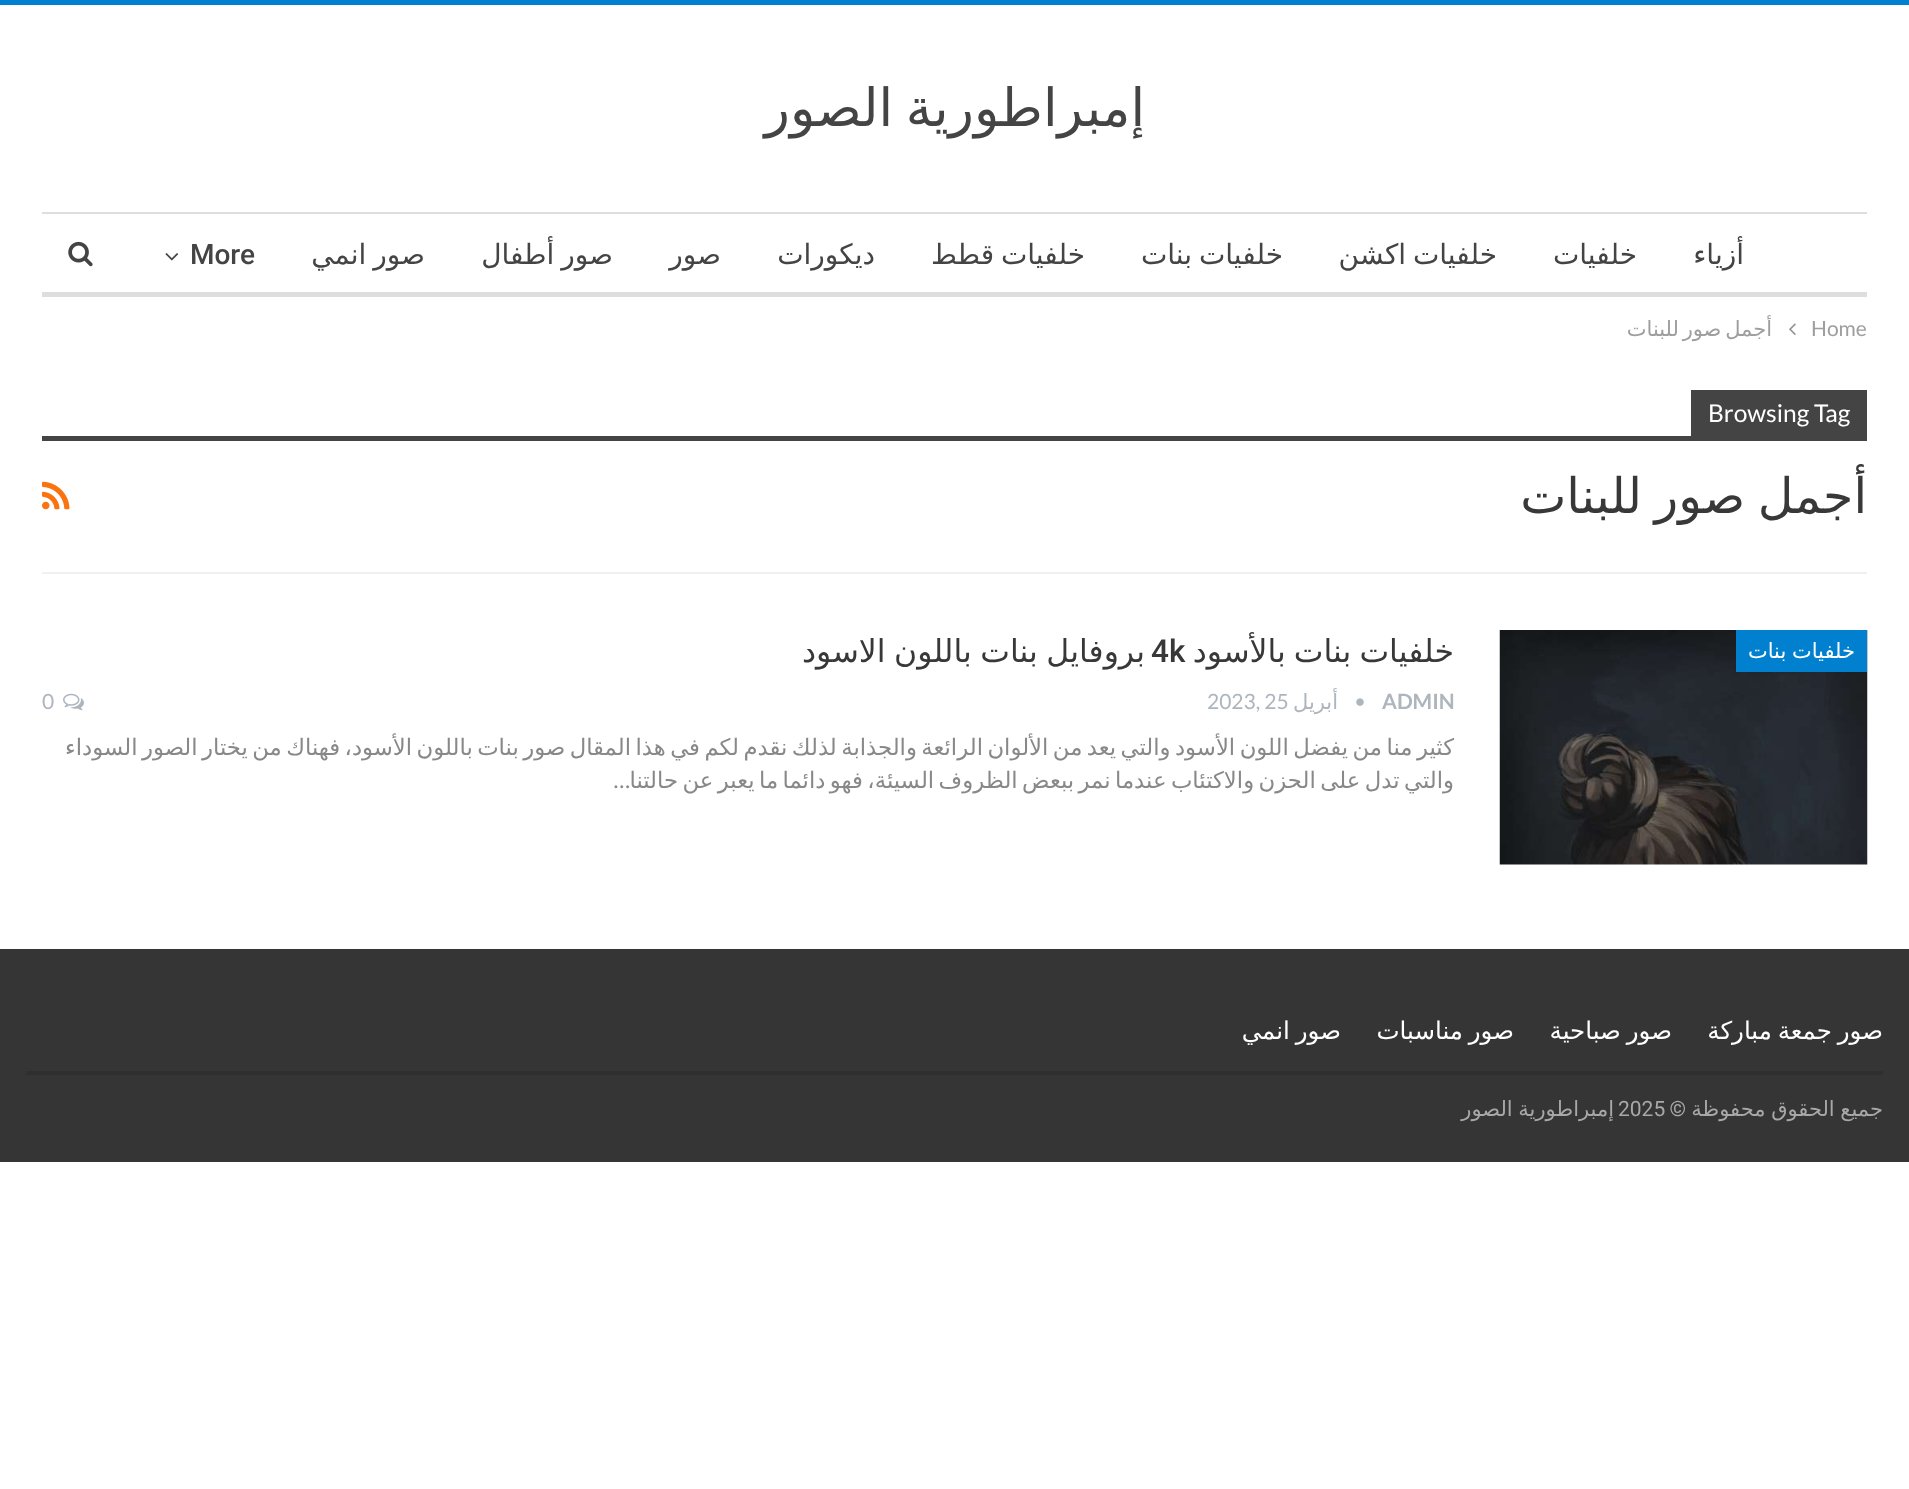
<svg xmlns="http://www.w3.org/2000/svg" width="1909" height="1489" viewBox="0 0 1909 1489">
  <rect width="100%" height="100%" fill="#ffffff"/>
  <rect x="0" y="0" width="1909" height="5" fill="#0080ce"/>
  <text x="1145" y="126" word-spacing="-4" font-family="DejaVu Sans" font-size="52.5" direction="rtl" fill="#444444">إمبراطورية الصور</text>
  <rect x="42" y="212" width="1825" height="2" fill="#dedede"/>
  <rect x="42" y="292" width="1825" height="5" fill="#dedede"/>
  <text x="1744" y="264" font-family="DejaVu Sans" font-size="28" direction="rtl" fill="#444444">أزياء</text>
  <text x="1637" y="264" font-family="DejaVu Sans" font-size="28" direction="rtl" fill="#444444">خلفيات</text>
  <text x="1497" y="264" word-spacing="-2" font-family="DejaVu Sans" font-size="28" direction="rtl" fill="#444444">خلفيات اكشن</text>
  <text x="1283" y="264" word-spacing="-2" font-family="DejaVu Sans" font-size="28" direction="rtl" fill="#444444">خلفيات بنات</text>
  <text x="1085" y="264" word-spacing="-2" font-family="DejaVu Sans" font-size="28" direction="rtl" fill="#444444">خلفيات قطط</text>
  <text x="875" y="264" font-family="DejaVu Sans" font-size="28" direction="rtl" fill="#444444">ديكورات</text>
  <text x="721" y="264" font-family="DejaVu Sans" font-size="28" direction="rtl" fill="#444444">صور</text>
  <text x="613" y="264" word-spacing="-2" font-family="DejaVu Sans" font-size="28" direction="rtl" fill="#444444">صور أطفال</text>
  <text x="425" y="264" word-spacing="-2" font-family="DejaVu Sans" font-size="28" direction="rtl" fill="#444444">صور انمي</text>
  <text x="190" y="264" font-family="Roboto" font-size="28" font-weight="500" fill="#444444">More</text>
  <image x="165" y="253" width="14" height="8" href="img1.png"/>
  <image x="68" y="241" width="25" height="26" href="img2.png"/>
  <text x="1811" y="336" font-family="Lato" font-size="21" fill="#9e9e9e">Home</text>
  <image x="1789" y="323" width="7" height="12" href="img3.png"/>
  <text x="1772" y="336" word-spacing="-3" font-family="DejaVu Sans" font-size="21" direction="rtl" fill="#9e9e9e">أجمل صور للبنات</text>
  <rect x="42" y="572" width="1825" height="2" fill="#f0f0f0"/>
  <rect x="1691" y="390" width="176" height="46" fill="#444444"/>
  <text x="1708" y="422" font-family="Lato" font-size="24.5" fill="#ffffff">Browsing Tag</text>
  <rect x="42" y="436" width="1825" height="5" fill="#444444"/>
  <text x="1867" y="513" word-spacing="-3" font-family="DejaVu Sans" font-size="49" direction="rtl" fill="#383838">أجمل صور للبنات</text>
  <image x="42" y="481" width="28" height="29" href="img4.png"/>
  <image x="1499" y="630" width="369" height="235" href="img5.png"/>
  <rect x="1736" y="630" width="131" height="42" fill="#0080ce"/>
  <text x="1855" y="658" word-spacing="-1" font-family="DejaVu Sans" font-size="21" direction="rtl" fill="#ffffff">خلفيات بنات</text>
  <text x="1454" y="662" word-spacing="-2" font-family="DejaVu Sans" font-size="31.5" direction="rtl" fill="#383838">خلفيات بنات بالأسود</text>
  <text x="1151" y="662" font-family="Roboto" font-size="31.5" font-weight="500" fill="#383838">4k</text>
  <text x="1145" y="662" word-spacing="-1.5" font-family="DejaVu Sans" font-size="31.5" direction="rtl" fill="#383838">بروفايل بنات باللون الاسود</text>
  <text x="1382" y="709" font-family="Lato" font-size="21" font-weight="bold" fill="#adb5bd">ADMIN</text>
  <image x="1356" y="698" width="8" height="8" href="img6.png"/>
  <text x="1338" y="709" font-family="DejaVu Sans" font-size="21" direction="rtl" fill="#adb5bd">أبريل</text>
  <text x="1207" y="709" font-family="Lato" font-size="21" fill="#adb5bd">2023, 25</text>
  <image x="63" y="693" width="21" height="18" href="img7.png"/>
  <text x="42" y="709" font-family="Lato" font-size="21" fill="#adb5bd">0</text>
  <text x="1454" y="755" word-spacing="-2.8" font-family="DejaVu Sans" font-size="22.75" direction="rtl" fill="#888888">كثير منا من يفضل اللون الأسود والتي يعد من الألوان الرائعة والجذابة لذلك نقدم لكم في هذا المقال صور بنات باللون الأسود، فهناك من يختار الصور السوداء</text>
  <text x="1454" y="788" word-spacing="-2.8" font-family="DejaVu Sans" font-size="22.75" direction="rtl" fill="#888888">والتي تدل على الحزن والاكتئاب عندما نمر ببعض الظروف السيئة، فهو دائما ما يعبر عن حالتنا</text>
  <text x="630" y="788" font-family="Lato" font-size="22.75" direction="rtl" fill="#888888">…</text>
  <rect x="0" y="949" width="1909" height="213" fill="#353535"/>
  <rect x="26" y="1071" width="1857" height="4" fill="#2f2f2f"/>
  <text x="1883" y="1039" word-spacing="-2" font-family="DejaVu Sans" font-size="24.5" direction="rtl" fill="#ffffff">صور جمعة مباركة</text>
  <text x="1672" y="1039" word-spacing="-2" font-family="DejaVu Sans" font-size="24.5" direction="rtl" fill="#ffffff">صور صباحية</text>
  <text x="1514" y="1039" word-spacing="-2" font-family="DejaVu Sans" font-size="24.5" direction="rtl" fill="#ffffff">صور مناسبات</text>
  <text x="1341" y="1039" word-spacing="-2" font-family="DejaVu Sans" font-size="24.5" direction="rtl" fill="#ffffff">صور انمي</text>
  <text x="1883" y="1116" word-spacing="-1" font-family="DejaVu Sans" font-size="21" direction="rtl" fill="#a8a8a8">جميع الحقوق محفوظة</text>
  <text x="1686" y="1116" font-family="Roboto" font-size="21" direction="rtl" fill="#a8a8a8">©</text>
  <text x="1618" y="1116" font-family="Roboto" font-size="21" fill="#a8a8a8">2025</text>
  <text x="1614" y="1116" word-spacing="-1" font-family="DejaVu Sans" font-size="21" direction="rtl" fill="#a8a8a8">إمبراطورية الصور</text>
</svg>
